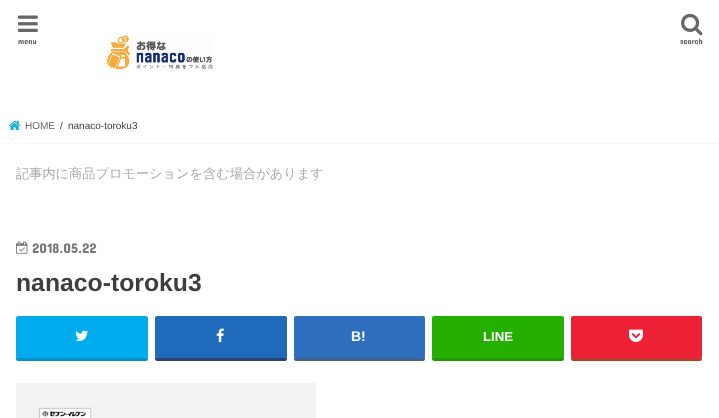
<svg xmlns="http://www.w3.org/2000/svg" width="719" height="418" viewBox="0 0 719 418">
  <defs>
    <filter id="blur1" x="-50%" y="-200%" width="200%" height="500%"><feGaussianBlur stdDeviation="0.5"/></filter>
  </defs>
  <rect width="100%" height="100%" fill="#ffffff"/>
  <image x="18" y="15" width="20" height="17" href="img1.png"/>
  <text x="18" y="44" font-family="Concert One" font-size="8" fill="#666666">menu</text>
  <image x="107" y="35" width="106" height="34" href="img2.png"/>
  <image x="681" y="13" width="22" height="23" href="img3.png"/>
  <text x="680" y="44" font-family="Concert One" font-size="8" fill="#666666">search</text>
  <rect x="0" y="143" width="719" height="1" fill="#f7f7f7"/>
  <image x="8" y="120" width="13" height="11" href="img4.png"/>
  <text x="25" y="129" font-family="Liberation Sans" font-size="10" fill="#666666">HOME</text>
  <text x="60" y="129" font-family="Liberation Sans" font-size="10" fill="#3e3e3e">/</text>
  <text x="68" y="129" font-family="Liberation Sans" font-size="10" fill="#3e3e3e">nanaco-toroku3</text>
  <rect x="0" y="144" width="719" height="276" fill="#dddddd" filter="url(#blur1)"/>
  <rect x="0" y="144" width="719" height="274" fill="#ffffff"/>
  <text x="16" y="178" font-family="WenQuanYi Zen Hei" font-size="13.2" font-weight="500" fill="#aaaaaa">記事内に商品プロモーションを含む場合があります</text>
  <image x="16" y="241" width="12" height="13" href="img5.png"/>
  <text x="32" y="253" font-family="Concert One" font-size="14" fill="#787878">2018.05.22</text>
  <text x="16" y="291" font-family="Liberation Sans" font-size="24.75" font-weight="bold" fill="#3e3e3e">nanaco-toroku3</text>
  <path d="M16 356V359C16 360 17 361 18 361H146C147 361 148 360 148 359V356C148 357 147 358 146 358H17Z" fill="#0092ca"/>
  <rect x="16" y="316" width="132" height="42" rx="2" fill="#00acee"/>
  <image x="75" y="330" width="13" height="11" href="img6.png"/>
  <path d="M155 356V359C155 360 156 361 157 361H285C286 361 287 360 287 359V356C287 357 286 358 285 358H156Z" fill="#2c4373"/>
  <rect x="155" y="316" width="132" height="42" rx="2" fill="#1f6aba"/>
  <image x="216" y="328" width="8" height="15" href="img7.png"/>
  <path d="M294 356V359C294 360 295 361 296 361H423C424 361 425 360 425 359V356C425 357 424 358 423 358H296C295 358 294 357 294 356Z" fill="#43638b"/>
  <rect x="294" y="316" width="131" height="42" rx="2" fill="#2f70be"/>
  <text x="351" y="341" font-family="Liberation Sans" font-size="14" font-weight="bold" fill="#ffffff">B!</text>
  <path d="M432 356V359C432 360 433 361 434 361H562C563 361 564 360 564 359V356C564 357 563 358 562 358H433Z" fill="#219900"/>
  <rect x="432" y="316" width="132" height="42" rx="2" fill="#25af00"/>
  <text x="483" y="341" font-family="Liberation Sans" font-size="13.2" font-weight="bold" fill="#ffffff">LINE</text>
  <path d="M571 356V359C571 360 572 361 573 361H700C701 361 702 360 702 359V356C702 357 701 358 700 358H573C572 358 571 357 571 356Z" fill="#c0392b"/>
  <rect x="571" y="316" width="131" height="42" rx="2" fill="#ec2136"/>
  <image x="629" y="329" width="14" height="13" href="img8.png"/>
  <image x="16" y="383" width="300" height="35" href="img9.png"/>
</svg>
